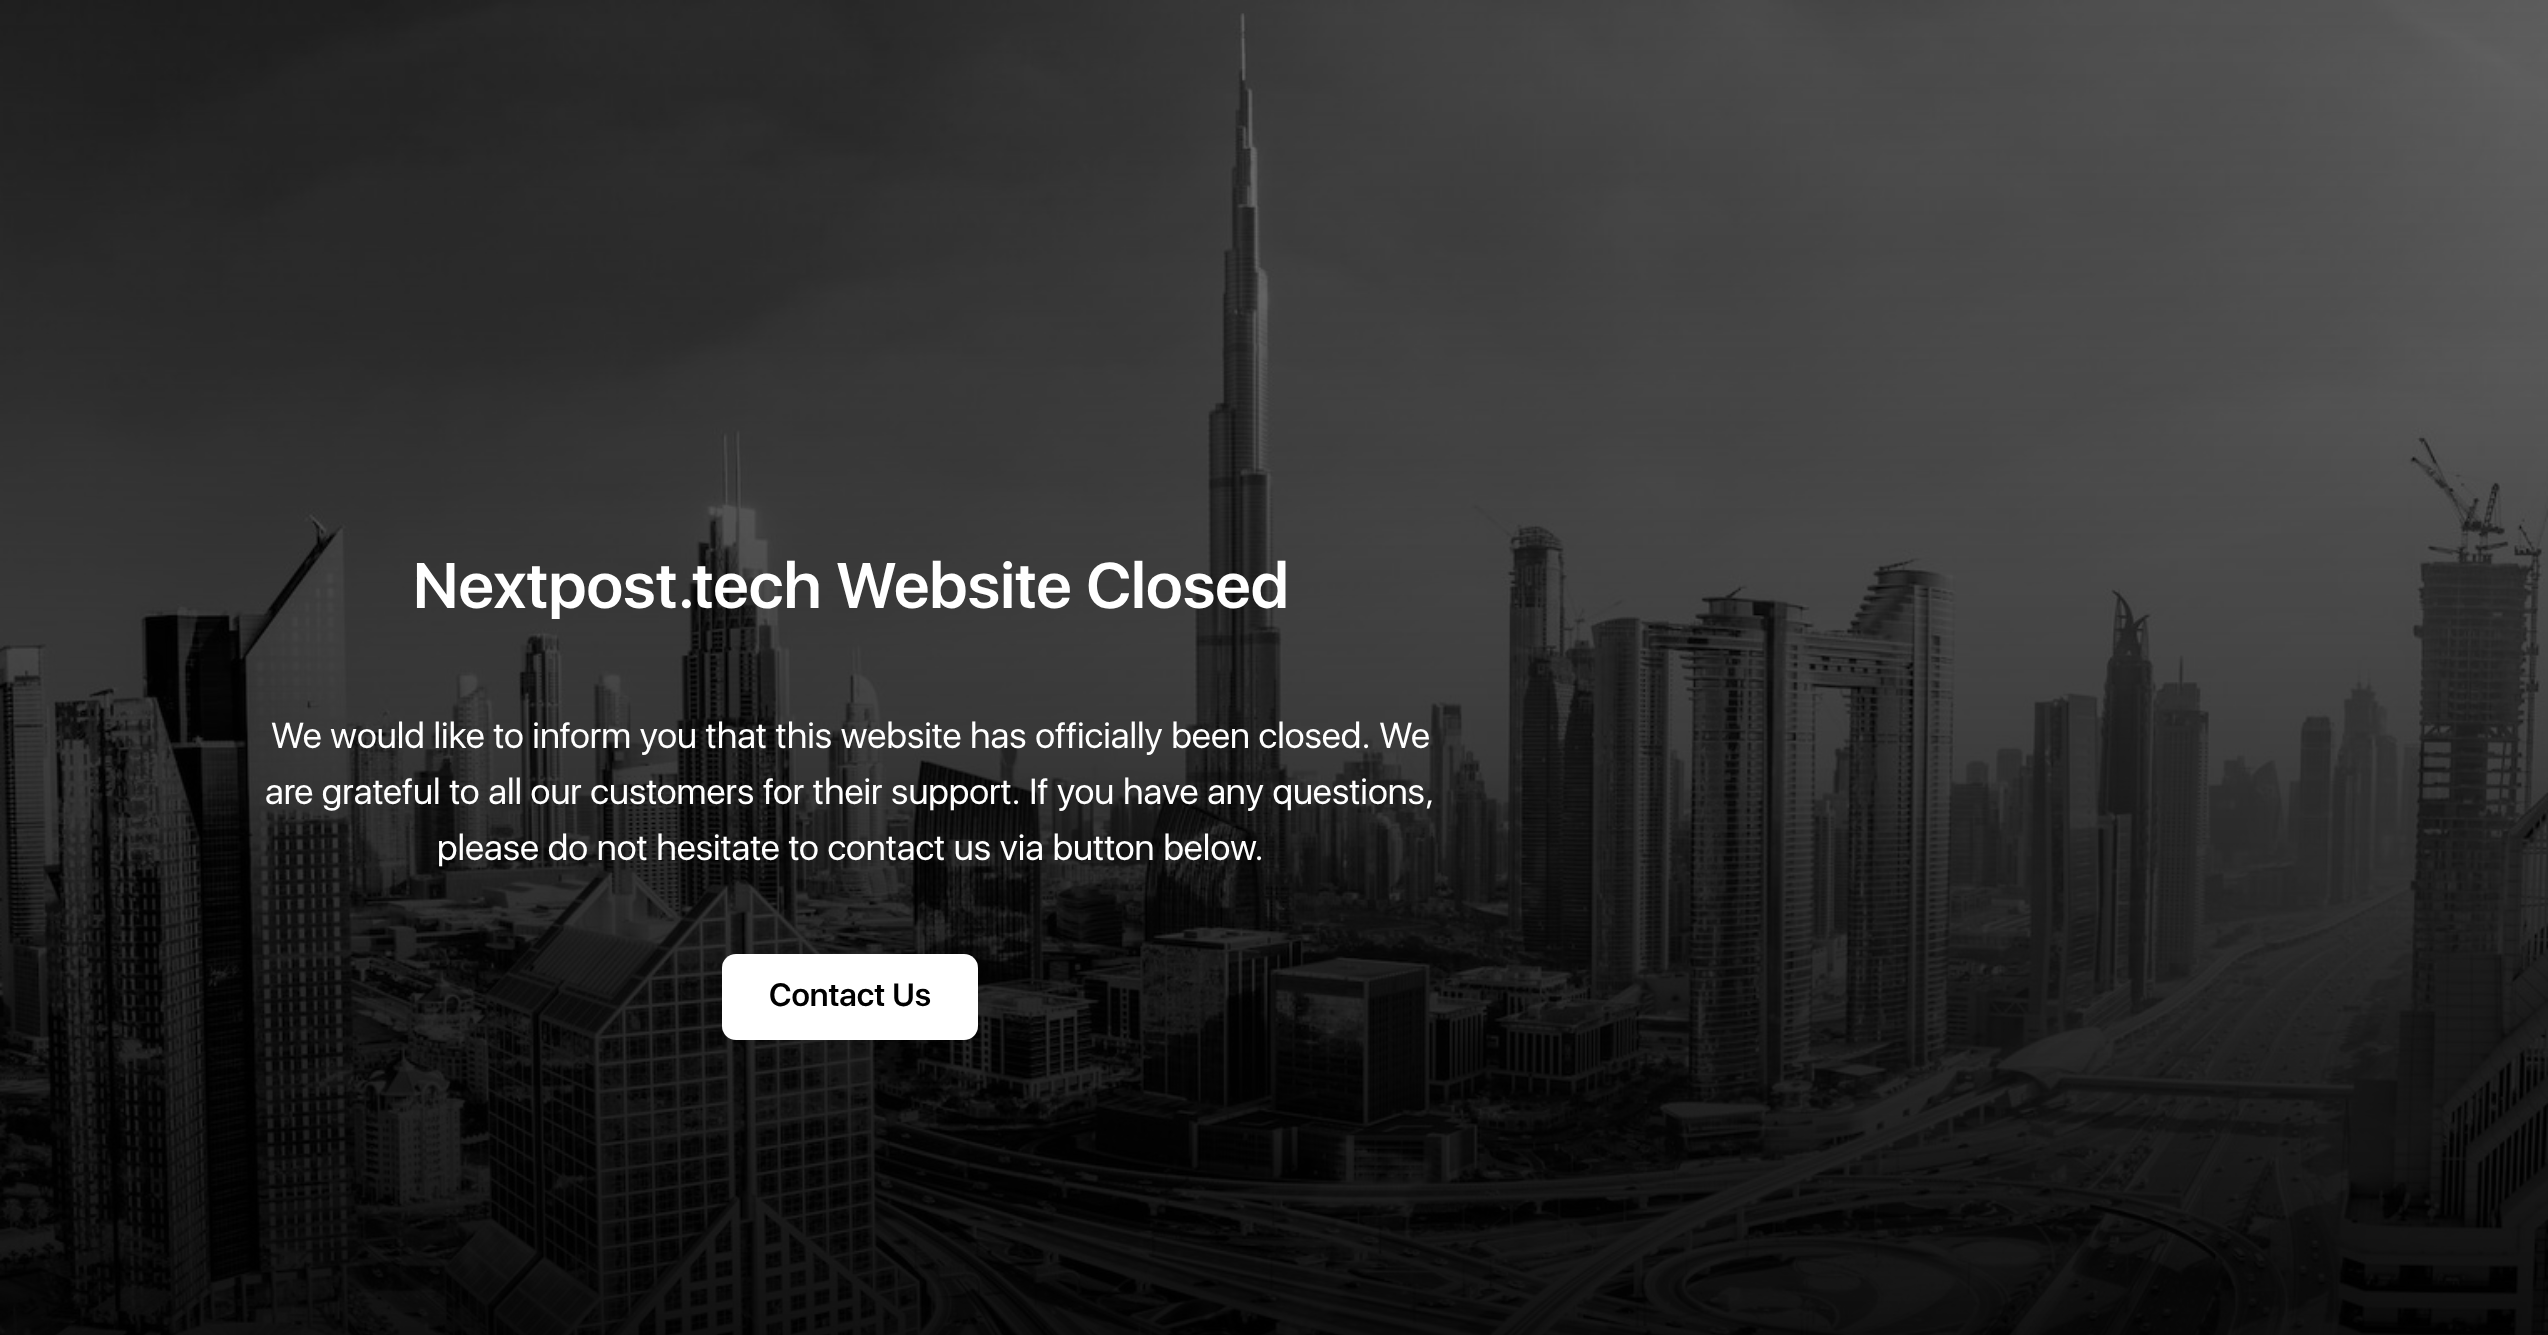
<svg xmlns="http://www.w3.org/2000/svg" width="2548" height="1335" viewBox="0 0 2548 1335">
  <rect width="100%" height="100%" fill="#ffffff"/>
  <image x="0" y="0" width="2548" height="1335" href="img1.png"/>
  <text x="413" y="608" font-family="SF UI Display" font-size="64" font-weight="600" fill="#ffffff">Nextpost.tech Website Closed</text>
  <text x="271" y="748" font-family="SF UI Display" font-size="36" fill="#ffffff">We would like to inform you that this website has officially been closed. We</text>
  <text x="265" y="804" font-family="SF UI Display" font-size="36" fill="#ffffff">are grateful to all our customers for their support. If you have any questions,</text>
  <text x="437" y="860" font-family="SF UI Display" font-size="36" fill="#ffffff">please do not hesitate to contact us via button below.</text>
  <rect x="722" y="954" width="256" height="86" rx="14" fill="#ffffff"/>
  <text x="769" y="1006" font-family="SF UI Display" font-size="32" font-weight="600" fill="#000000">Contact Us</text>
</svg>
